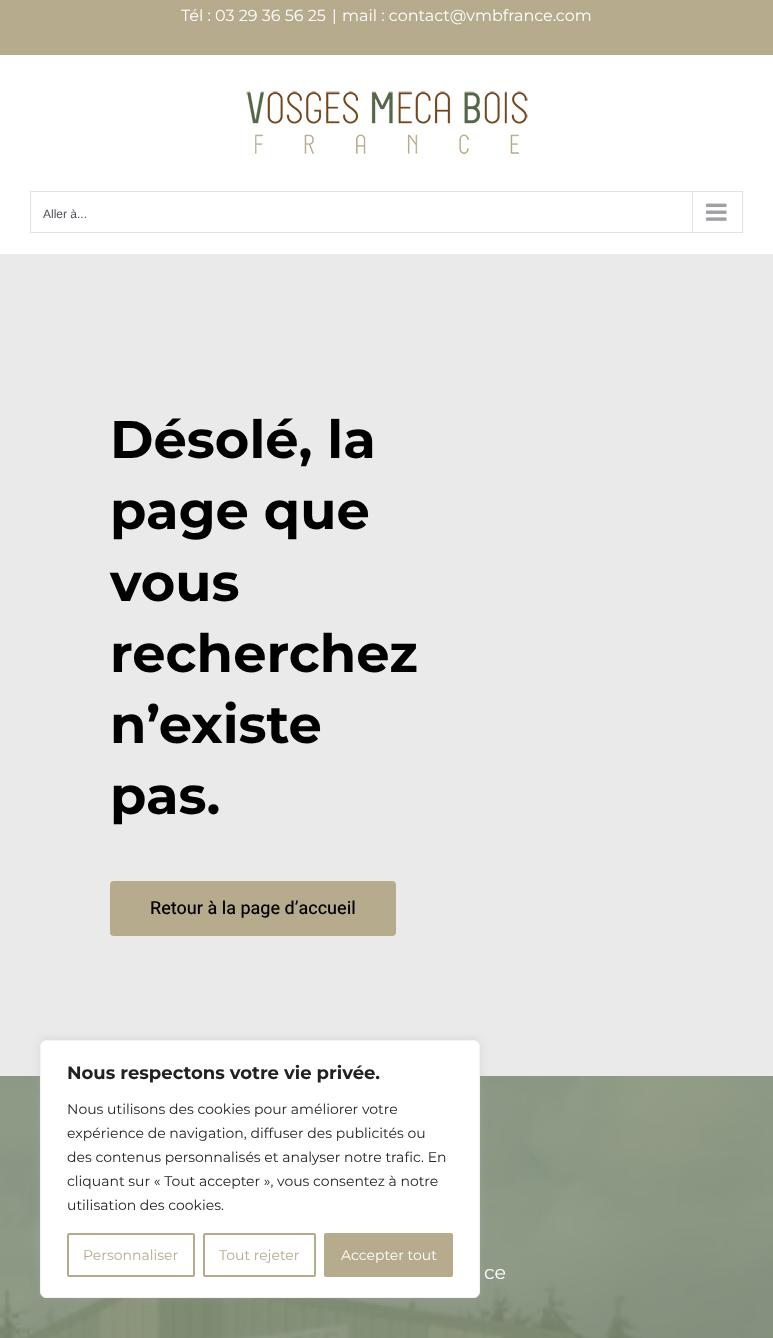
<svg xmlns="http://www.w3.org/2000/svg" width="773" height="1338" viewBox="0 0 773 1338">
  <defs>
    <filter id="blur1" x="-50%" y="-200%" width="200%" height="500%"><feGaussianBlur stdDeviation="5"/></filter>
  </defs>
  <rect width="100%" height="100%" fill="#ffffff"/>
  <rect x="0" y="0" width="773" height="55" fill="#b6ab8c"/>
  <text x="181" y="21" font-family="Montserrat" font-size="16" fill="#ffffff">Tél : 03 29 36 56 25</text>
  <text x="332" y="21" font-family="Montserrat" font-size="16" fill="#ffffff">|</text>
  <text x="342" y="21" font-family="Montserrat" font-size="16" fill="#ffffff">mail : contact@vmbfrance.com</text>
  <image x="246" y="91" width="282" height="63" href="img1.png"/>
  <rect x="30.5" y="191.5" width="712" height="41" fill="none" stroke="#e2e2e2"/>
  <text x="43" y="218" font-family="Liberation Sans" font-size="12" fill="#4a4e57">Aller à...</text>
  <rect x="692" y="192" width="1" height="40" fill="#e2e2e2"/>
  <image x="706" y="203" width="21" height="18" href="img2.png"/>
  <rect x="0" y="254" width="773" height="822" fill="#eaeaea"/>
  <text x="110" y="458" font-family="Montserrat" font-size="52.75" font-weight="bold" fill="#000000">Désolé, la</text>
  <text x="110" y="529" font-family="Montserrat" font-size="52.75" font-weight="bold" fill="#000000">page que</text>
  <text x="110" y="601" font-family="Montserrat" font-size="52.75" font-weight="bold" fill="#000000">vous</text>
  <text x="110" y="672" font-family="Montserrat" font-size="52.75" font-weight="bold" fill="#000000">recherchez</text>
  <text x="110" y="743" font-family="Montserrat" font-size="52.75" font-weight="bold" fill="#000000">n’existe</text>
  <text x="110" y="814" font-family="Montserrat" font-size="52.75" font-weight="bold" fill="#000000">pas.</text>
  <rect x="110" y="881" width="286" height="55" rx="4" fill="#b6ab8c"/>
  <text x="150" y="914" font-family="Heebo" font-size="18" font-weight="500" fill="#000000">Retour à la page d’accueil</text>
  <image x="0" y="1076" width="773" height="262" href="img3.png"/>
  <text x="484" y="1279" font-family="Montserrat" font-size="19" fill="#ffffff">ce</text>
  <rect x="40" y="1039" width="440" height="258" rx="6" fill="#acabab" fill-opacity="0.3" filter="url(#blur1)"/>
  <rect x="40.5" y="1040.5" width="439" height="257" rx="5.5" fill="#ffffff" stroke="#f4f4f4"/>
  <text x="67" y="1079" font-family="Montserrat" font-size="18" font-weight="bold" fill="#212121">Nous respectons votre vie privée.</text>
  <text x="67" y="1114" font-family="Montserrat" font-size="14" fill="#212121">Nous utilisons des cookies pour améliorer votre</text>
  <text x="67" y="1138" font-family="Montserrat" font-size="14" fill="#212121">expérience de navigation, diffuser des publicités ou</text>
  <text x="67" y="1162" font-family="Montserrat" font-size="14" fill="#212121">des contenus personnalisés et analyser notre trafic. En</text>
  <text x="67" y="1186" font-family="Montserrat" font-size="14" fill="#212121">cliquant sur « Tout accepter », vous consentez à notre</text>
  <text x="67" y="1210" font-family="Montserrat" font-size="14" fill="#212121">utilisation des cookies.</text>
  <rect x="68" y="1234" width="126" height="42" rx="1" fill="none" stroke="#b6ab8c" stroke-width="2"/>
  <text x="83" y="1260" font-family="Montserrat" font-size="14" fill="#b6ab8c">Personnaliser</text>
  <rect x="204" y="1234" width="111" height="42" rx="1" fill="none" stroke="#b6ab8c" stroke-width="2"/>
  <text x="219" y="1260" font-family="Montserrat" font-size="14" fill="#b6ab8c">Tout rejeter</text>
  <rect x="325" y="1234" width="127" height="42" rx="1" fill="#b6ab8c" stroke="#b6ab8c" stroke-width="2"/>
  <text x="341" y="1260" font-family="Montserrat" font-size="14" fill="#ffffff">Accepter tout</text>
</svg>
